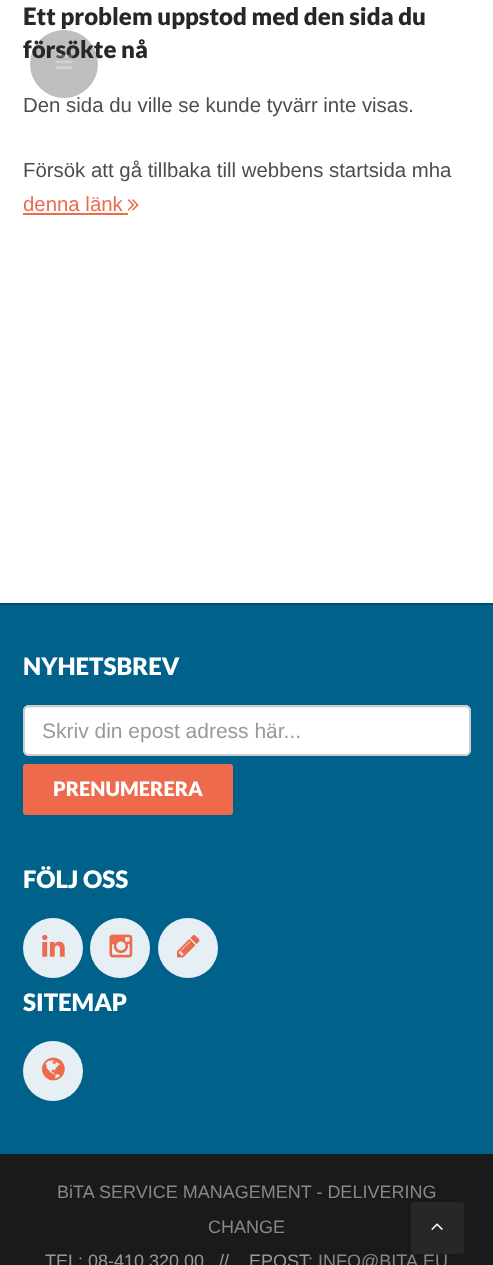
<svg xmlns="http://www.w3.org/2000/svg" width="493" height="1265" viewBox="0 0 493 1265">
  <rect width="100%" height="100%" fill="#ffffff"/>
  <text x="23" y="25" font-family="Lato" font-size="24" font-weight="900" fill="#272727">Ett problem uppstod med den sida du</text>
  <text x="23" y="58" font-family="Lato" font-size="24" font-weight="900" fill="#272727">försökte nå</text>
  <text x="23" y="112" font-family="Liberation Sans" font-size="20.4" fill="#4d4d4d">Den sida du ville se kunde tyvärr inte visas.</text>
  <text x="23" y="177" font-family="Liberation Sans" font-size="20.4" fill="#4d4d4d">Försök att gå tillbaka till webbens startsida mha</text>
  <text x="23" y="211" font-family="Liberation Sans" font-size="20.4" fill="#ed6a4d">denna länk</text>
  <rect x="23" y="213" width="105" height="2" fill="#ed6a4d"/>
  <image x="127" y="199" width="12" height="12" href="img1.png"/>
  <circle cx="64" cy="64" r="34" fill="#272727" fill-opacity="0.3"/>
  <image x="55" y="54" width="18" height="15" href="img2.png"/>
  <rect x="0" y="605" width="493" height="549" fill="#00628b"/>
  <rect x="0" y="603" width="493" height="2" fill="#004e6f"/>
  <text x="23" y="675" font-family="Lato" font-size="24" font-weight="900" fill="#ffffff">NYHETSBREV</text>
  <rect x="23" y="705" width="448" height="51" rx="6" fill="#ffffff"/>
  <path d="M28 708H465C467 708 470 710 470 712C470 709 468 707 465 707H29C26 707 24 709 24 712C24 710 26 708 28 708Z" fill="#ececec"/>
  <rect x="24" y="706" width="446" height="49" rx="5" fill="none" stroke="#cccccc" stroke-width="2"/>
  <text x="42" y="738" font-family="Liberation Sans" font-size="21" fill="#999999">Skriv din epost adress här...</text>
  <rect x="23" y="764" width="210" height="51" rx="3" fill="#ed6a4d"/>
  <text x="53" y="796" font-family="Lato" font-size="20" font-weight="900" fill="#ffffff">PRENUMERERA</text>
  <text x="23" y="888" font-family="Lato" font-size="24" font-weight="900" fill="#ffffff">FÖLJ OSS</text>
  <circle cx="53" cy="948" r="30" fill="#e6eff3"/>
  <image x="42" y="935" width="23" height="22" href="img3.png"/>
  <circle cx="120" cy="948" r="30" fill="#e6eff3"/>
  <image x="109" y="934" width="24" height="24" href="img4.png"/>
  <circle cx="188" cy="948" r="30" fill="#e6eff3"/>
  <image x="177" y="935" width="23" height="23" href="img5.png"/>
  <text x="23" y="1011" font-family="Lato" font-size="24" font-weight="900" fill="#ffffff">SITEMAP</text>
  <circle cx="53" cy="1071" r="30" fill="#e6eff3"/>
  <image x="42" y="1057" width="23" height="24" href="img6.png"/>
  <rect x="0" y="1154" width="493" height="111" fill="#1a1a1a"/>
  <text x="57" y="1198" font-family="Liberation Sans" font-size="18" fill="#888888">BiTA</text>
  <text x="99" y="1198" font-family="Liberation Sans" font-size="18" fill="#888888">SERVICE MANAGEMENT - DELIVERING</text>
  <text x="208" y="1233" font-family="Liberation Sans" font-size="18" fill="#888888">CHANGE</text>
  <text x="45" y="1267" font-family="Liberation Sans" font-size="18" fill="#999999">TEL: 08-410 320 00</text>
  <text x="219" y="1267" font-family="Liberation Sans" font-size="18" fill="#999999">//</text>
  <text x="249" y="1267" font-family="Liberation Sans" font-size="18" fill="#999999">EPOST:</text>
  <text x="318" y="1267" font-family="Liberation Sans" font-size="18" fill="#888888">INFO@BITA.EU</text>
  <rect x="411" y="1202" width="53" height="52" rx="3" fill="#272727"/>
  <image x="431" y="1223" width="12" height="7" href="img7.png"/>
</svg>
